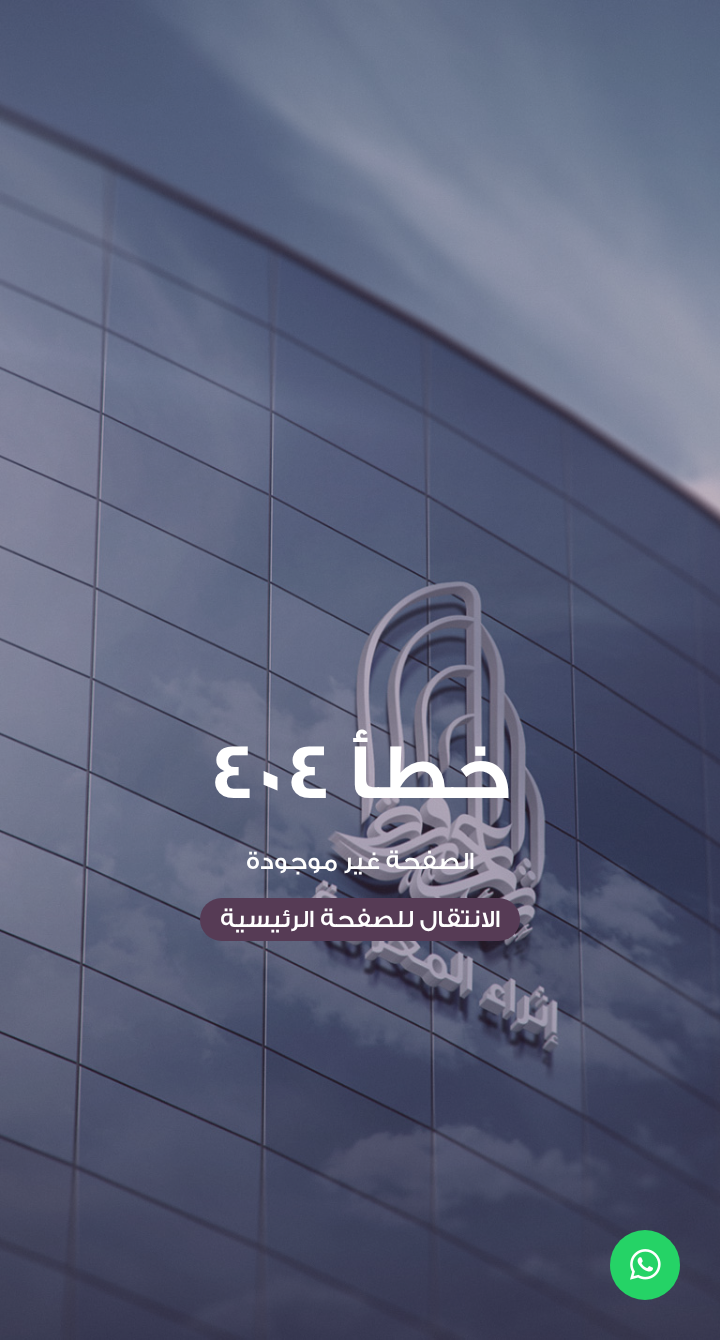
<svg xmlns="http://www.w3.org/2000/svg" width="720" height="1340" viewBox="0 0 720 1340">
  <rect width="100%" height="100%" fill="#ffffff"/>
  <image x="0" y="0" width="720" height="1340" href="img1.png"/>
  <text x="511" y="798" font-family="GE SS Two" font-size="80" font-weight="bold" direction="rtl" fill="#ffffff">خطأ</text>
  <text x="209" y="798" font-family="GE SS Two" font-size="80" font-weight="bold" fill="#ffffff">404</text>
  <text x="474" y="869" font-family="GE SS Two" font-size="25" font-weight="500" direction="rtl" fill="#ffffff">الصفحة غير موجودة</text>
  <rect x="200" y="898" width="320" height="43" rx="21.5" fill="#563b55"/>
  <text x="500" y="927" font-family="GE SS Two" font-size="25" font-weight="500" direction="rtl" fill="#ffffff">الانتقال للصفحة الرئيسية</text>
  <circle cx="645" cy="1265" r="35" fill="#25d366"/>
  <image x="630" y="1249" width="31" height="31" href="img2.png"/>
</svg>
